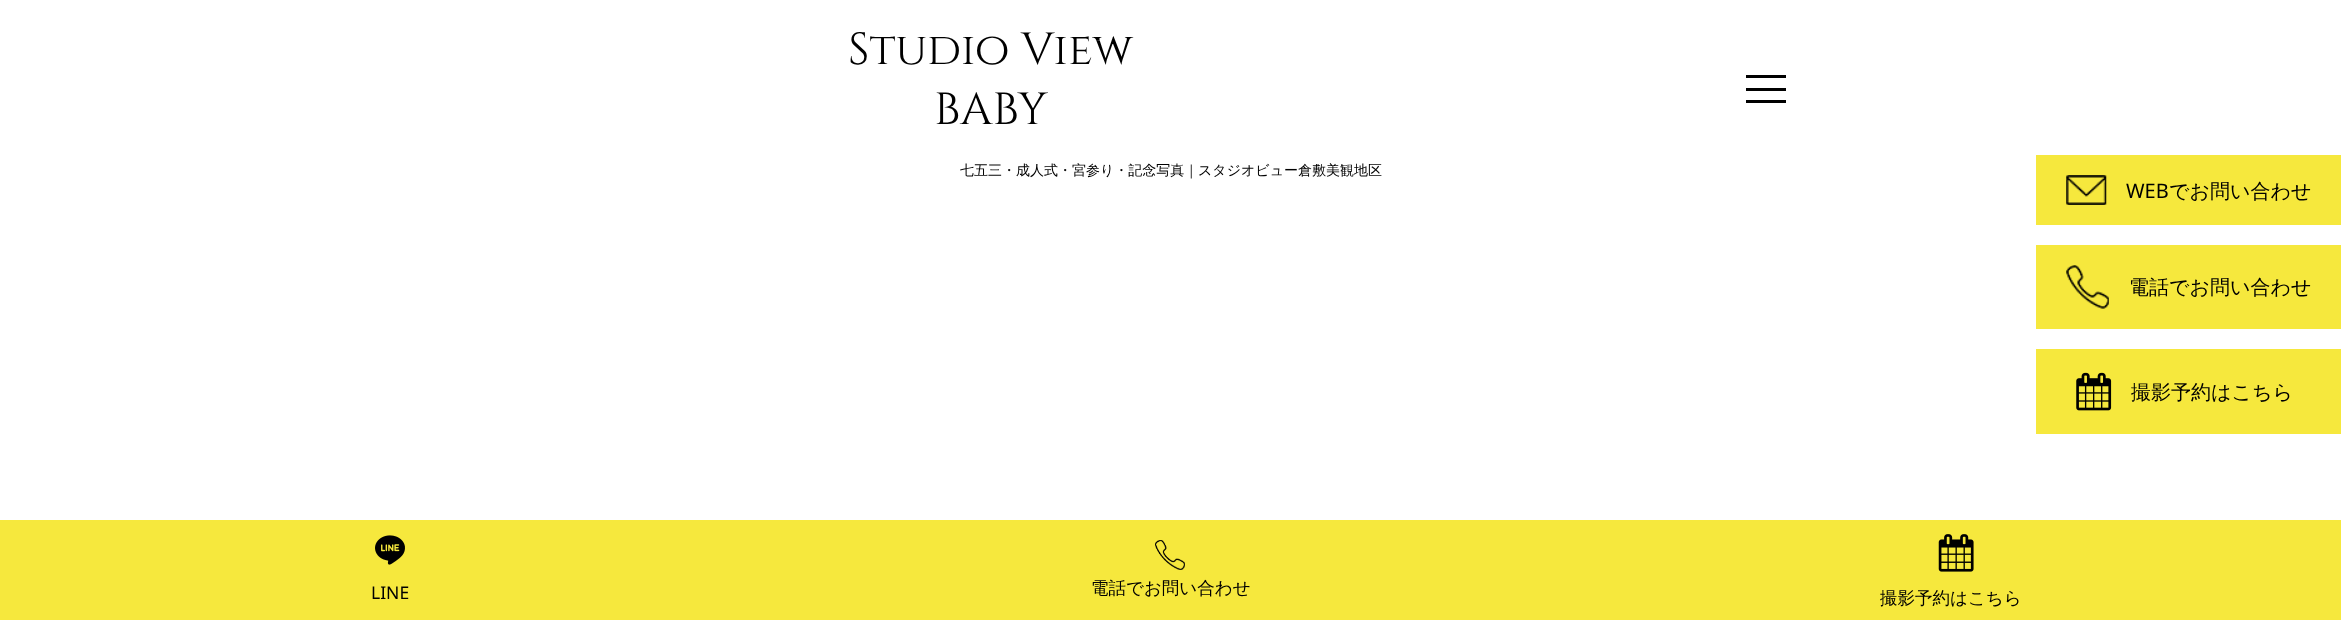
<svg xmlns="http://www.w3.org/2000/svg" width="2341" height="620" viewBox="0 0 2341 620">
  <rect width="100%" height="100%" fill="#ffffff"/>
  <text x="848" y="64" font-family="Cinzel" font-size="45" fill="#000000">Studio View</text>
  <text x="934" y="124" font-family="Cinzel" font-size="45" fill="#000000">BABY</text>
  <rect x="1746" y="88" width="40" height="3" fill="#000000"/>
  <rect x="1746" y="75" width="40" height="3" fill="#000000"/>
  <rect x="1746" y="100" width="40" height="3" fill="#000000"/>
  <text x="960" y="175" font-family="WenQuanYi Zen Hei" font-size="14" font-weight="500" fill="#000000">七五三・成人式・宮参り・記念写真｜スタジオビュー倉敷美観地区</text>
  <rect x="2036" y="155" width="305" height="70" fill="#f6e83d"/>
  <image x="2066" y="175" width="41" height="30" href="img1.png"/>
  <text x="2126" y="198" font-family="Noto Sans" font-size="20" fill="#000000">WEB</text>
  <text x="2169" y="198" font-family="WenQuanYi Zen Hei" font-size="20" font-weight="500" fill="#000000">でお問い合わせ</text>
  <rect x="2036" y="245" width="305" height="84" fill="#f6e83d"/>
  <image x="2066" y="265" width="43" height="44" href="img2.png"/>
  <text x="2129" y="294" font-family="WenQuanYi Zen Hei" font-size="20" font-weight="500" fill="#000000">電話でお問い合わせ</text>
  <rect x="2036" y="349" width="305" height="85" fill="#f6e83d"/>
  <image x="2076" y="372" width="36" height="39" href="img3.png"/>
  <text x="2131" y="399" font-family="WenQuanYi Zen Hei" font-size="20" font-weight="500" fill="#000000">撮影予約はこちら</text>
  <rect x="0" y="520" width="2341" height="100" fill="#f6e83d"/>
  <image x="375" y="535" width="30" height="30" href="img4.png"/>
  <text x="371" y="599" font-family="Noto Sans" font-size="17.5" fill="#000000">LINE</text>
  <image x="1155" y="540" width="30" height="30" href="img5.png"/>
  <text x="1091" y="594" font-family="WenQuanYi Zen Hei" font-size="17.5" font-weight="500" fill="#000000">電話でお問い合わせ</text>
  <image x="1938" y="534" width="36" height="38" href="img6.png"/>
  <text x="1880" y="604" font-family="WenQuanYi Zen Hei" font-size="17.5" font-weight="500" fill="#000000">撮影予約はこちら</text>
</svg>
